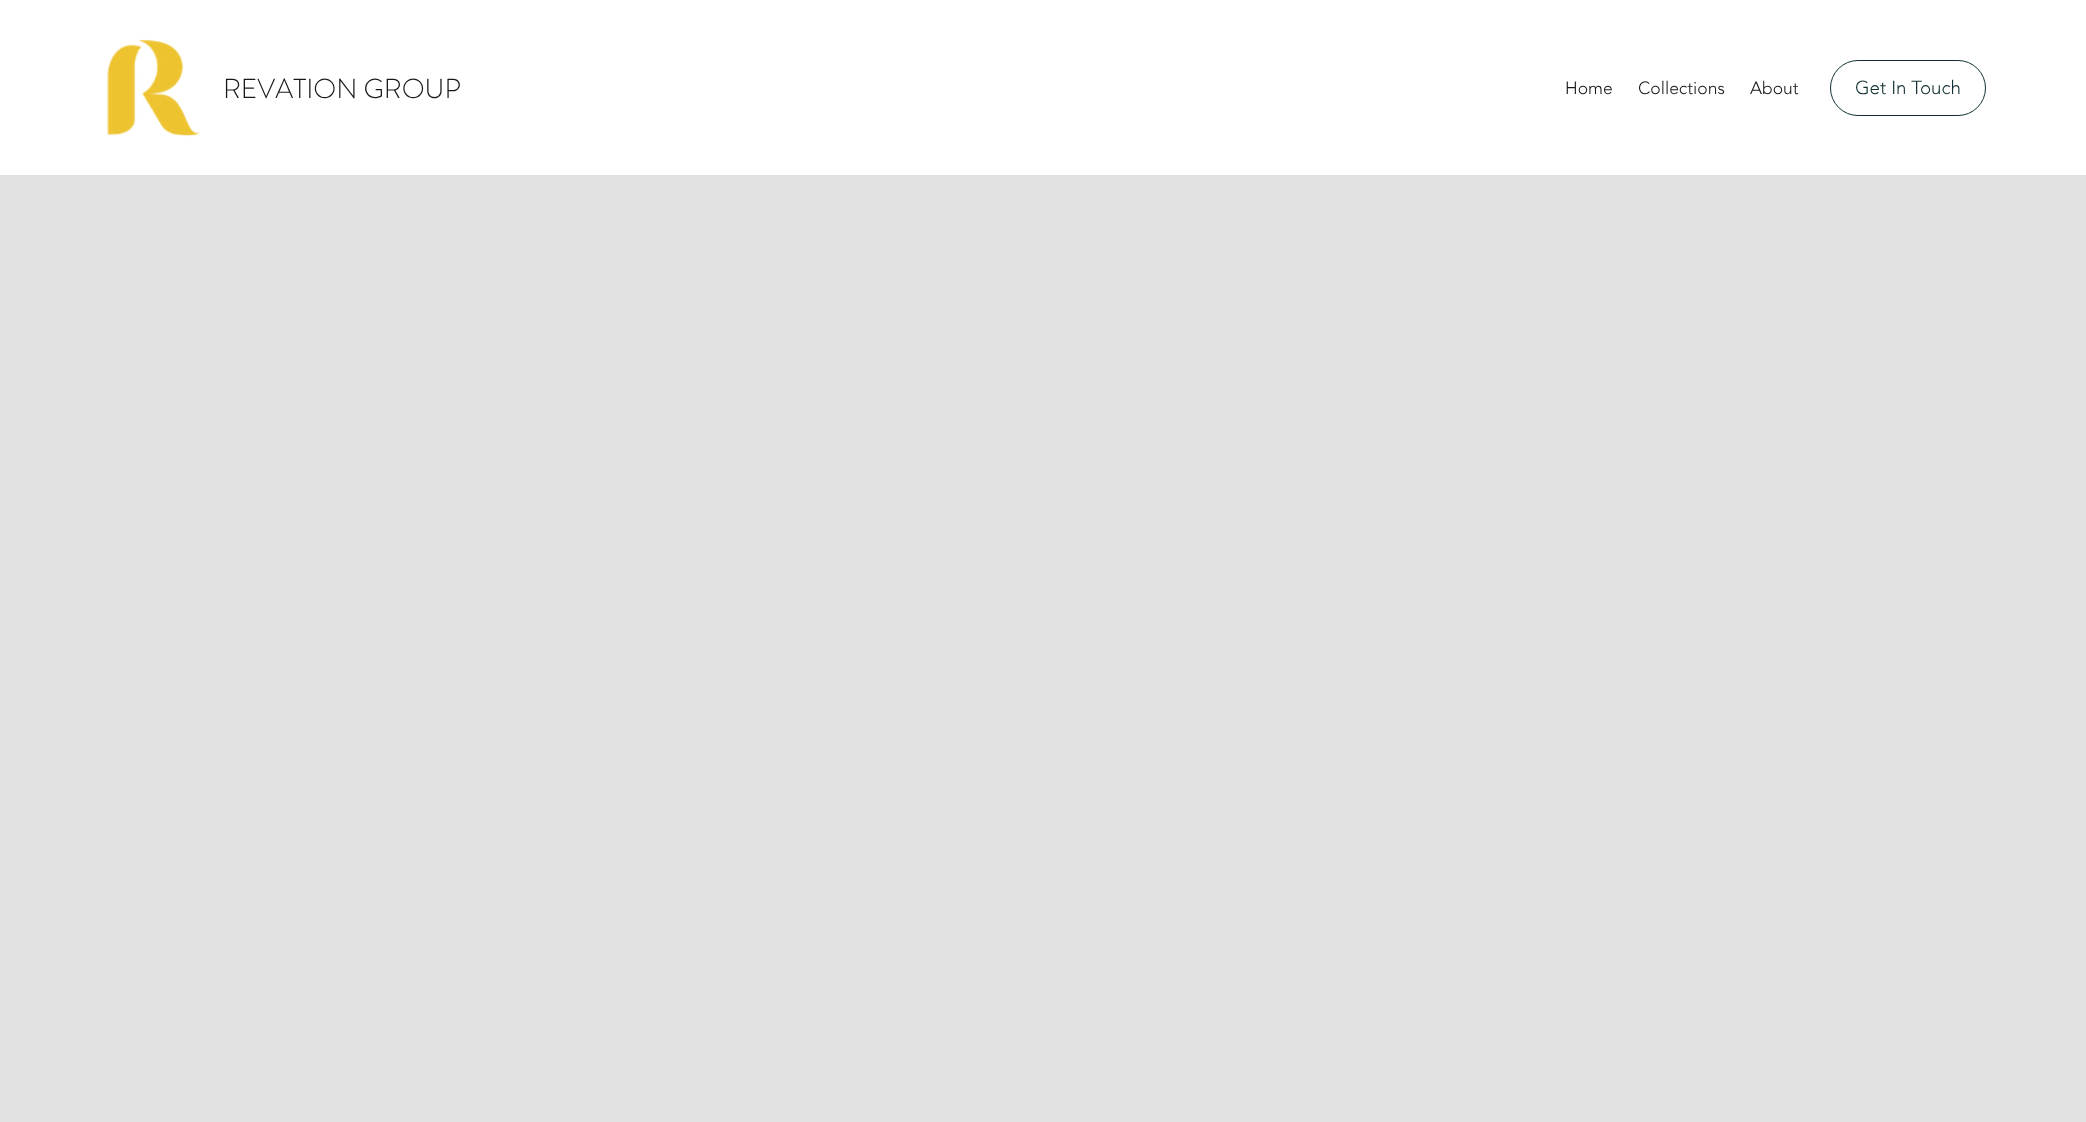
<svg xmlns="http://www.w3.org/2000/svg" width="2086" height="1122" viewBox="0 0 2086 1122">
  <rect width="100%" height="100%" fill="#ffffff"/>
  <image x="107" y="39" width="93" height="98" href="img1.png"/>
  <text x="223" y="98" font-family="'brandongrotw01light'" font-size="27.5" font-weight="300" fill="#181818">REVATION GROUP</text>
  <text x="1565" y="94" font-family="'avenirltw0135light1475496'" font-size="17.5" font-weight="300" fill="#181818">Home</text>
  <text x="1638" y="94" font-family="'avenirltw0135light1475496'" font-size="17.5" font-weight="300" fill="#181818">Collections</text>
  <text x="1750" y="94" font-family="'avenirltw0135light1475496'" font-size="17.5" font-weight="300" fill="#181818">About</text>
  <rect x="1830.5" y="60.5" width="155" height="55" rx="27.5" fill="none" stroke="#123033"/>
  <text x="1855" y="94" font-family="'avenirltw0135light1475496'" font-size="18.75" font-weight="300" fill="#123033">Get In Touch</text>
  <rect x="0" y="175" width="2086" height="947" fill="#e1e1e1"/>
</svg>
